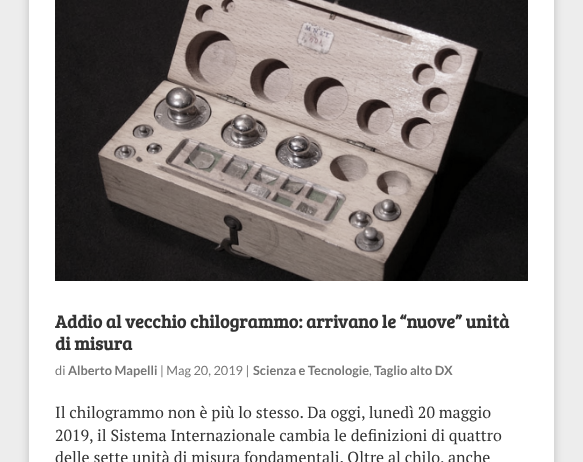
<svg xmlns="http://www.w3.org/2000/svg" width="583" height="462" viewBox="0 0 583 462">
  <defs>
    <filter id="blur1" x="-50%" y="-200%" width="200%" height="500%"><feGaussianBlur stdDeviation="5"/></filter>
  </defs>
  <rect width="100%" height="100%" fill="#ededed"/>
  <rect x="29" y="-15" width="525" height="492" fill="#000000" fill-opacity="0.2" filter="url(#blur1)"/>
  <rect x="29" y="0" width="525" height="462" fill="#ffffff"/>
  <image x="55" y="0" width="473" height="281" href="img1.png"/>
  <text x="55" y="328" font-family="Bree Serif" font-size="18" font-weight="bold" fill="#333333">Addio al vecchio chilogrammo: arrivano le “nuove” unità</text>
  <text x="55" y="350" font-family="Bree Serif" font-size="18" font-weight="bold" fill="#333333">di misura</text>
  <text x="55" y="375" font-family="Lato" font-size="12.75" fill="#777777">di</text>
  <text x="68" y="375" font-family="Lato" font-size="12.75" font-weight="bold" fill="#777777">Alberto Mapelli</text>
  <text x="160" y="375" font-family="Lato" font-size="12.75" fill="#777777">| Mag 20, 2019 |</text>
  <text x="253" y="375" font-family="Lato" font-size="12.75" font-weight="bold" fill="#777777">Scienza e Tecnologie</text>
  <text x="369" y="375" font-family="Lato" font-size="12.75" fill="#777777">,</text>
  <text x="374" y="375" font-family="Lato" font-size="12.75" font-weight="bold" fill="#777777">Taglio alto DX</text>
  <text x="55" y="418" font-family="PT Serif" font-size="16" fill="#333333">Il chilogrammo non è più lo stesso. Da oggi, lunedì 20 maggio</text>
  <text x="55" y="441" font-family="PT Serif" font-size="16" fill="#333333">2019, il Sistema Internazionale cambia le definizioni di quattro</text>
  <text x="55" y="463" font-family="PT Serif" font-size="16" fill="#333333">delle sette unità di misura fondamentali. Oltre al chilo, anche</text>
</svg>
